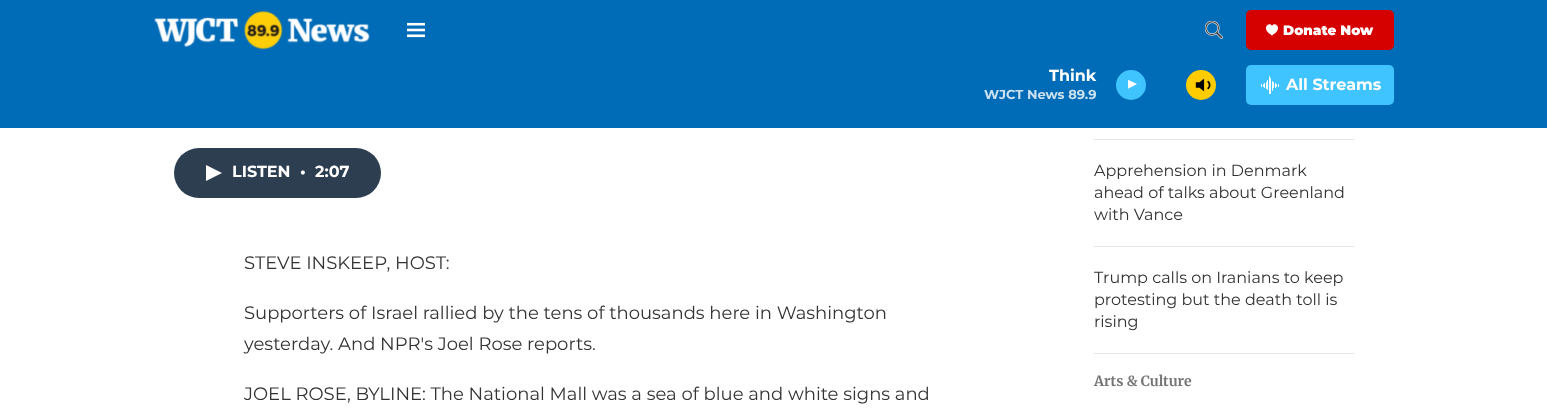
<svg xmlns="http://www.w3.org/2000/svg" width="1547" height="411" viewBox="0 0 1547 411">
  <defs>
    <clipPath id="clip1"><rect x="1128" y="78" width="12" height="15"/></clipPath>
  </defs>
  <rect width="100%" height="100%" fill="#ffffff"/>
  <rect x="0" y="0" width="1547" height="128" fill="#006bb6"/>
  <image x="154" y="11" width="216" height="39" href="img1.png"/>
  <image x="407" y="22" width="18" height="16" href="img2.png"/>
  <image x="1205" y="21" width="18" height="18" href="img3.png"/>
  <rect x="1246" y="10" width="148" height="40" rx="5" fill="#d50000"/>
  <path d="M1272 26C1270 21 1259.5 28 1272 35.5C1284.5 28 1274 21 1272 26Z" fill="#ffffff"/>
  <text x="1283" y="35" font-family="Montserrat" font-size="13.5" font-weight="900" fill="#ffffff">Donate Now</text>
  <text x="1049" y="81" font-family="Montserrat" font-size="16" font-weight="bold" fill="#ffffff">Think</text>
  <text x="984" y="99" font-family="Montserrat" font-size="13" font-weight="bold" fill="#cce1f0">WJCT News 89.9</text>
  <circle cx="1131" cy="85" r="15" fill="#40c4ff"/>
  <g clip-path="url(#clip1)">
    <path d="M1127.5 79.5L1137 84L1127.5 89Z" fill="#ffffff"/>
  </g>
  <circle cx="1201" cy="85" r="15" fill="#ffcc00"/>
  <image x="1195" y="78" width="16" height="14" href="img4.png"/>
  <rect x="1246" y="65" width="148" height="40" rx="5" fill="#40c4ff"/>
  <image x="1261" y="76" width="18" height="18" href="img5.png"/>
  <text x="1286" y="90" font-family="Montserrat" font-size="16" font-weight="bold" fill="#ffffff">All Streams</text>
  <rect x="174" y="148" width="207" height="50" rx="25" fill="#2c3e50"/>
  <path d="M206 165L222 173L206 181Z" fill="#ffffff"/>
  <text x="232" y="177" font-family="Montserrat" font-size="16" font-weight="bold" fill="#ffffff">LISTEN</text>
  <text x="300" y="177" font-family="Montserrat" font-size="16" font-weight="bold" fill="#ffffff">•</text>
  <text x="315" y="177" font-family="Montserrat" font-size="16" font-weight="bold" fill="#ffffff">2:07</text>
  <text x="244" y="269" font-family="Montserrat" font-size="18" fill="#333333">STEVE INSKEEP, HOST:</text>
  <text x="244" y="319" font-family="Montserrat" font-size="18" fill="#333333">Supporters of Israel rallied by the tens of thousands here in Washington</text>
  <text x="244" y="350" font-family="Montserrat" font-size="18" fill="#333333">yesterday. And NPR's Joel Rose reports.</text>
  <text x="244" y="400" font-family="Montserrat" font-size="18" fill="#333333">JOEL ROSE, BYLINE: The National Mall was a sea of blue and white signs and</text>
  <rect x="1094" y="139" width="260" height="1" fill="#e6e6e6"/>
  <rect x="1094" y="246" width="260" height="1" fill="#e6e6e6"/>
  <text x="1094" y="176" font-family="Montserrat" font-size="16" fill="#333333">Apprehension in Denmark</text>
  <text x="1094" y="198" font-family="Montserrat" font-size="16" fill="#333333">ahead of talks about Greenland</text>
  <text x="1094" y="220" font-family="Montserrat" font-size="16" fill="#333333">with Vance</text>
  <rect x="1094" y="353" width="260" height="1" fill="#e6e6e6"/>
  <text x="1094" y="283" font-family="Montserrat" font-size="16" fill="#333333">Trump calls on Iranians to keep</text>
  <text x="1094" y="305" font-family="Montserrat" font-size="16" fill="#333333">protesting but the death toll is</text>
  <text x="1094" y="327" font-family="Montserrat" font-size="16" fill="#333333">rising</text>
  <text x="1094" y="386" font-family="Merriweather" font-size="14" font-weight="bold" fill="#767676">Arts &amp; Culture</text>
</svg>
